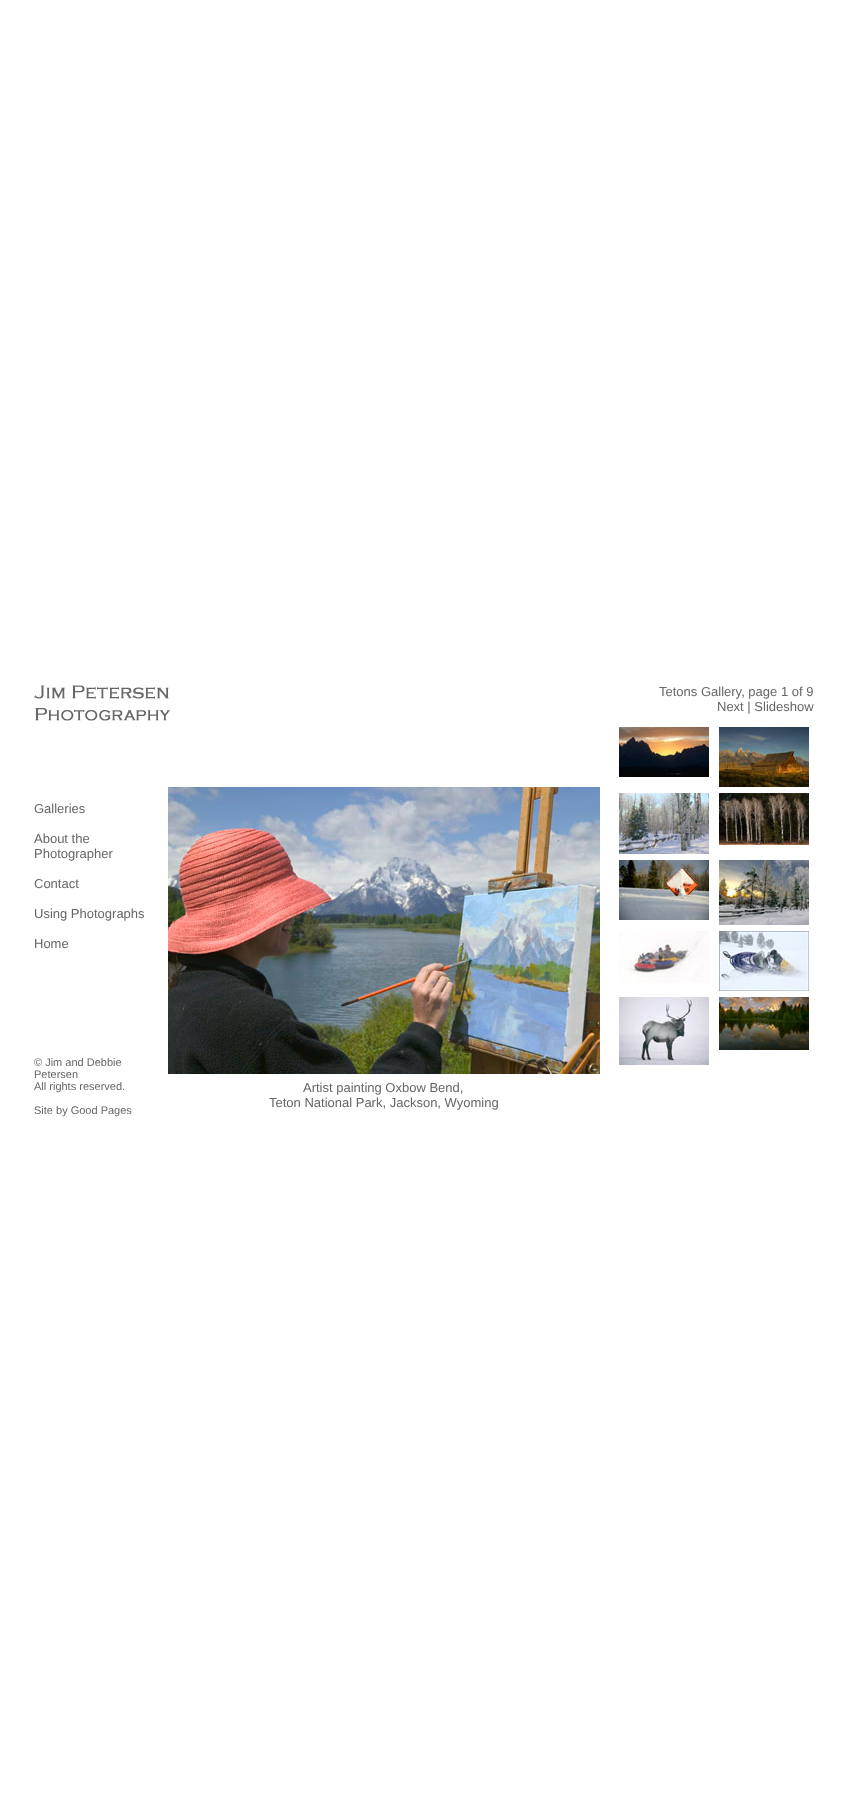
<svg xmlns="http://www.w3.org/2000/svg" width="847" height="1800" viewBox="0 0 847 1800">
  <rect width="100%" height="100%" fill="#ffffff"/>
  <image x="34" y="685" width="136" height="36" href="img1.png"/>
  <text x="659" y="696" font-family="Liberation Sans" font-size="13" fill="#666666">Tetons Gallery, page 1 of 9</text>
  <text x="717" y="711" font-family="Liberation Sans" font-size="13" fill="#666666">Next | Slideshow</text>
  <text x="34" y="813" font-family="Liberation Sans" font-size="13" fill="#666666">Galleries</text>
  <text x="34" y="843" font-family="Liberation Sans" font-size="13" fill="#666666">About the</text>
  <text x="34" y="858" font-family="Liberation Sans" font-size="13" fill="#666666">Photographer</text>
  <text x="34" y="888" font-family="Liberation Sans" font-size="13" fill="#666666">Contact</text>
  <text x="34" y="918" font-family="Liberation Sans" font-size="13" fill="#666666">Using Photographs</text>
  <text x="34" y="948" font-family="Liberation Sans" font-size="13" fill="#666666">Home</text>
  <text x="34" y="1066" font-family="Liberation Sans" font-size="11" fill="#666666">© Jim and Debbie</text>
  <text x="34" y="1078" font-family="Liberation Sans" font-size="11" fill="#666666">Petersen</text>
  <text x="34" y="1090" font-family="Liberation Sans" font-size="11" fill="#666666">All rights reserved.</text>
  <text x="34" y="1114" font-family="Liberation Sans" font-size="11" fill="#666666">Site by Good Pages</text>
  <image x="168" y="787" width="432" height="287" href="img2.png"/>
  <image x="619" y="727" width="90" height="50" href="img3.png"/>
  <image x="719" y="727" width="90" height="60" href="img4.png"/>
  <image x="619" y="793" width="90" height="61" href="img5.png"/>
  <image x="719" y="793" width="90" height="52" href="img6.png"/>
  <image x="619" y="860" width="90" height="60" href="img7.png"/>
  <image x="719" y="860" width="90" height="65" href="img8.png"/>
  <image x="619" y="931" width="90" height="52" href="img9.png"/>
  <image x="719" y="931" width="90" height="60" href="img10.png"/>
  <image x="619" y="997" width="90" height="68" href="img11.png"/>
  <image x="719" y="997" width="90" height="53" href="img12.png"/>
  <text x="303" y="1092" font-family="Liberation Sans" font-size="13" fill="#666666">Artist painting Oxbow Bend,</text>
  <text x="269" y="1107" font-family="Liberation Sans" font-size="13" fill="#666666">Teton National Park, Jackson, Wyoming</text>
</svg>
